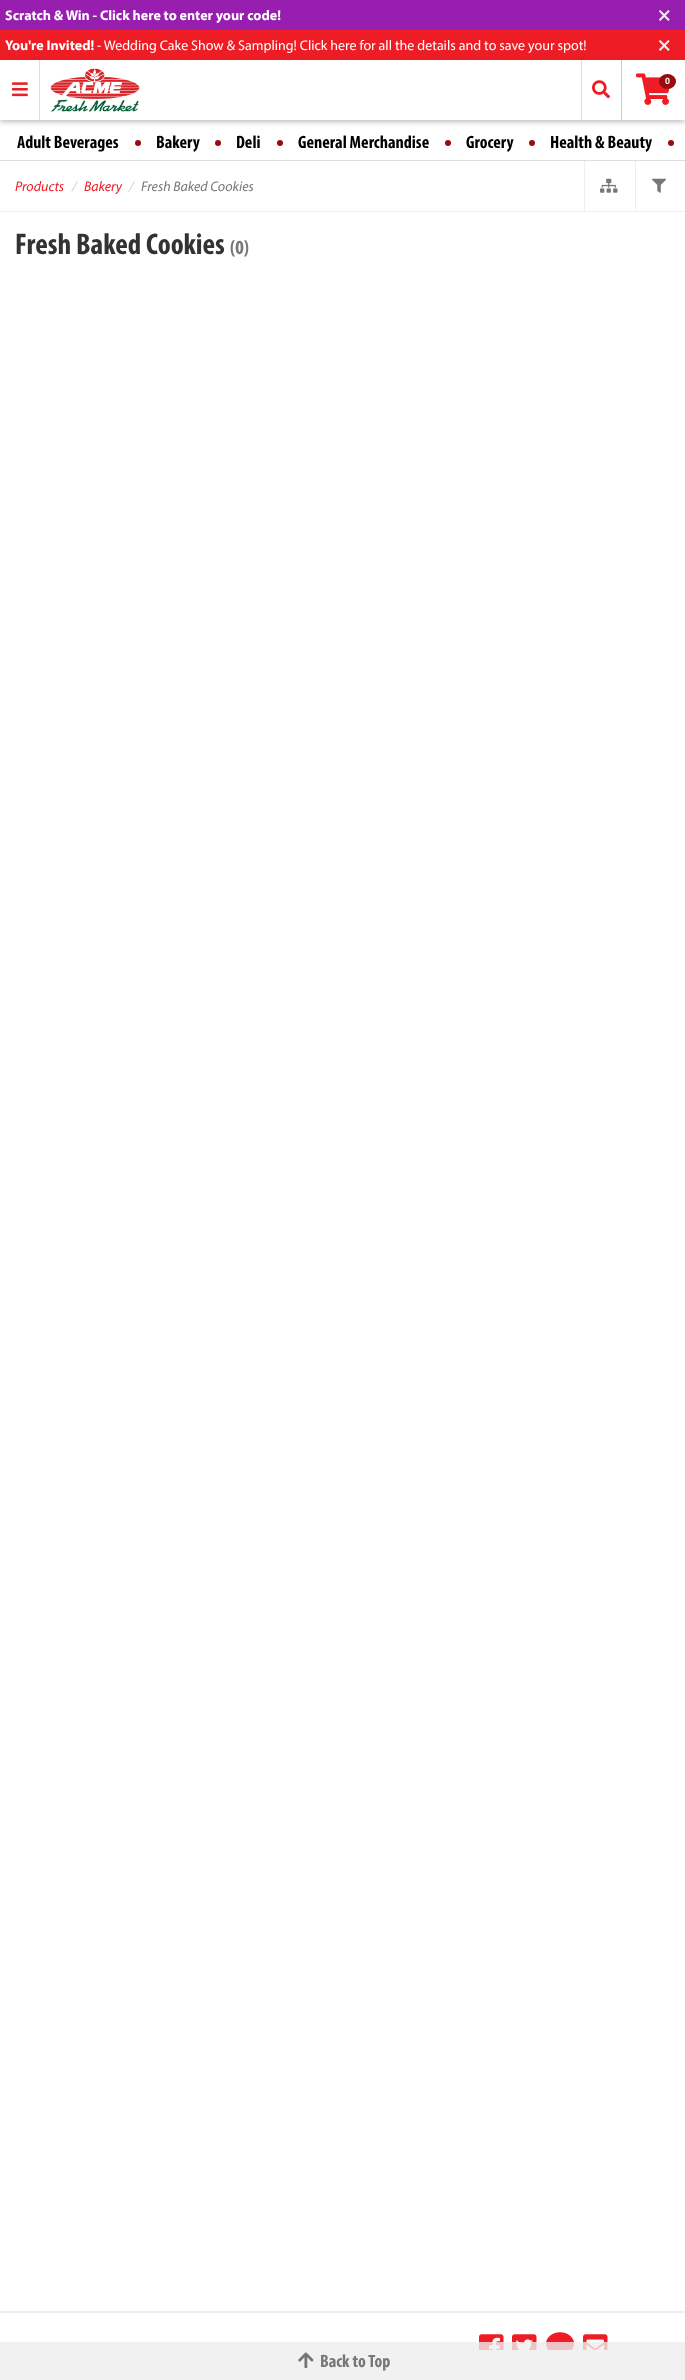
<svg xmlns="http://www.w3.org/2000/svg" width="685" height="2380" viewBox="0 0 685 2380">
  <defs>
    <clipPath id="clip1"><path d="M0 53H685V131H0ZM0 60H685V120H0Z" clip-rule="evenodd"/></clipPath>
    <filter id="blur1" x="-50%" y="-200%" width="200%" height="500%"><feGaussianBlur stdDeviation="2.5"/></filter>
  </defs>
  <rect width="100%" height="100%" fill="#ffffff"/>
  <rect x="0" y="0" width="685" height="30" fill="#981eb0"/>
  <text x="5" y="20" font-family="Myriad" font-size="14" font-weight="bold" fill="#ffffff">Scratch &amp; Win - Click here to enter your code!</text>
  <text x="658" y="21" font-family="Myriad" font-size="21" font-weight="bold" fill="#f5e9f7">×</text>
  <rect x="0" y="30" width="685" height="30" fill="#ee1c24"/>
  <text x="5" y="50" font-family="Myriad" font-size="14" font-weight="bold" fill="#ffffff">You're Invited!</text>
  <text x="97" y="50" font-family="Myriad" font-size="14" fill="#ffffff">- Wedding Cake Show &amp; Sampling! Click here for all the details and to save your spot!</text>
  <text x="658" y="51" font-family="Myriad" font-size="21" font-weight="bold" fill="#fde8e9">×</text>
  <g clip-path="url(#clip1)">
    <rect x="0" y="62" width="685" height="60" fill="#000000" fill-opacity="0.25" filter="url(#blur1)"/>
  </g>
  <rect x="39" y="60" width="1" height="60" fill="#dddddd"/>
  <image x="12" y="82" width="16" height="15" href="img1.png"/>
  <image x="50" y="68" width="90" height="44" href="img2.png"/>
  <rect x="581" y="60" width="1" height="60" fill="#dddddd"/>
  <image x="592" y="80" width="18" height="19" href="img3.png"/>
  <rect x="621" y="60" width="1" height="62" fill="#cccccc"/>
  <image x="636" y="73" width="34" height="32" href="img4.png"/>
  <ellipse cx="667.5" cy="81.5" rx="8.5" ry="7.5" fill="#990b11"/>
  <text x="665" y="84" font-family="Liberation Sans" font-size="9" font-weight="bold" fill="#ffffff">0</text>
  <text x="17" y="148" font-family="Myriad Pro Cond" font-size="18" font-weight="bold" fill="#000000">Adult Beverages</text>
  <circle cx="138" cy="143" r="3" fill="#990b11"/>
  <text x="156" y="148" font-family="Myriad Pro Cond" font-size="18" font-weight="bold" fill="#000000">Bakery</text>
  <circle cx="218" cy="143" r="3" fill="#990b11"/>
  <text x="236" y="148" font-family="Myriad Pro Cond" font-size="18" font-weight="bold" fill="#000000">Deli</text>
  <circle cx="280" cy="143" r="3" fill="#990b11"/>
  <text x="298" y="148" font-family="Myriad Pro Cond" font-size="18" font-weight="bold" fill="#000000">General Merchandise</text>
  <circle cx="448" cy="143" r="3" fill="#990b11"/>
  <text x="466" y="148" font-family="Myriad Pro Cond" font-size="18" font-weight="bold" fill="#000000">Grocery</text>
  <circle cx="532" cy="143" r="3" fill="#990b11"/>
  <text x="550" y="148" font-family="Myriad Pro Cond" font-size="18" font-weight="bold" fill="#000000">Health &amp; Beauty</text>
  <circle cx="671" cy="143" r="3" fill="#990b11"/>
  <rect x="0" y="160" width="685" height="1" fill="#dddddd"/>
  <rect x="0" y="211" width="685" height="1" fill="#eeeeee"/>
  <text x="15" y="191" font-family="Myriad" font-size="14" font-style="italic" fill="#ee1c24">Products</text>
  <text x="72" y="191" font-family="Myriad" font-size="14" font-style="italic" fill="#cccccc">/</text>
  <text x="84" y="191" font-family="Myriad" font-size="14" font-style="italic" fill="#ee1c24">Bakery</text>
  <text x="129" y="191" font-family="Myriad" font-size="14" font-style="italic" fill="#cccccc">/</text>
  <text x="141" y="191" font-family="Myriad" font-size="14" font-style="italic" fill="#777777">Fresh Baked Cookies</text>
  <rect x="584" y="161" width="1" height="50" fill="#eeeeee"/>
  <image x="600" y="178" width="18" height="15" href="img5.png"/>
  <rect x="635" y="161" width="1" height="50" fill="#eeeeee"/>
  <image x="652" y="178" width="14" height="15" href="img6.png"/>
  <text x="15" y="254" font-family="Myriad Pro Cond" font-size="30" font-weight="bold" fill="#333333">Fresh Baked Cookies</text>
  <text x="230" y="254" font-family="Myriad Pro Cond" font-size="20" font-weight="bold" fill="#777777">(0)</text>
  <image x="479" y="2334" width="25" height="16" href="img8.png"/>
  <image x="512" y="2334" width="25" height="16" href="img9.png"/>
  <image x="546" y="2332" width="29" height="18" href="img10.png"/>
  <image x="583" y="2334" width="25" height="16" href="img11.png"/>
  <rect x="0" y="2342" width="685" height="38" fill="#eeeeee" fill-opacity="0.8"/>
  <image x="298" y="2352" width="16" height="17" href="img7.png"/>
  <text x="320" y="2367" font-family="Myriad Pro Cond" font-size="18" font-weight="bold" fill="#777777">Back to Top</text>
  <rect x="0" y="2311" width="685" height="2" fill="#eeeeee"/>
</svg>
